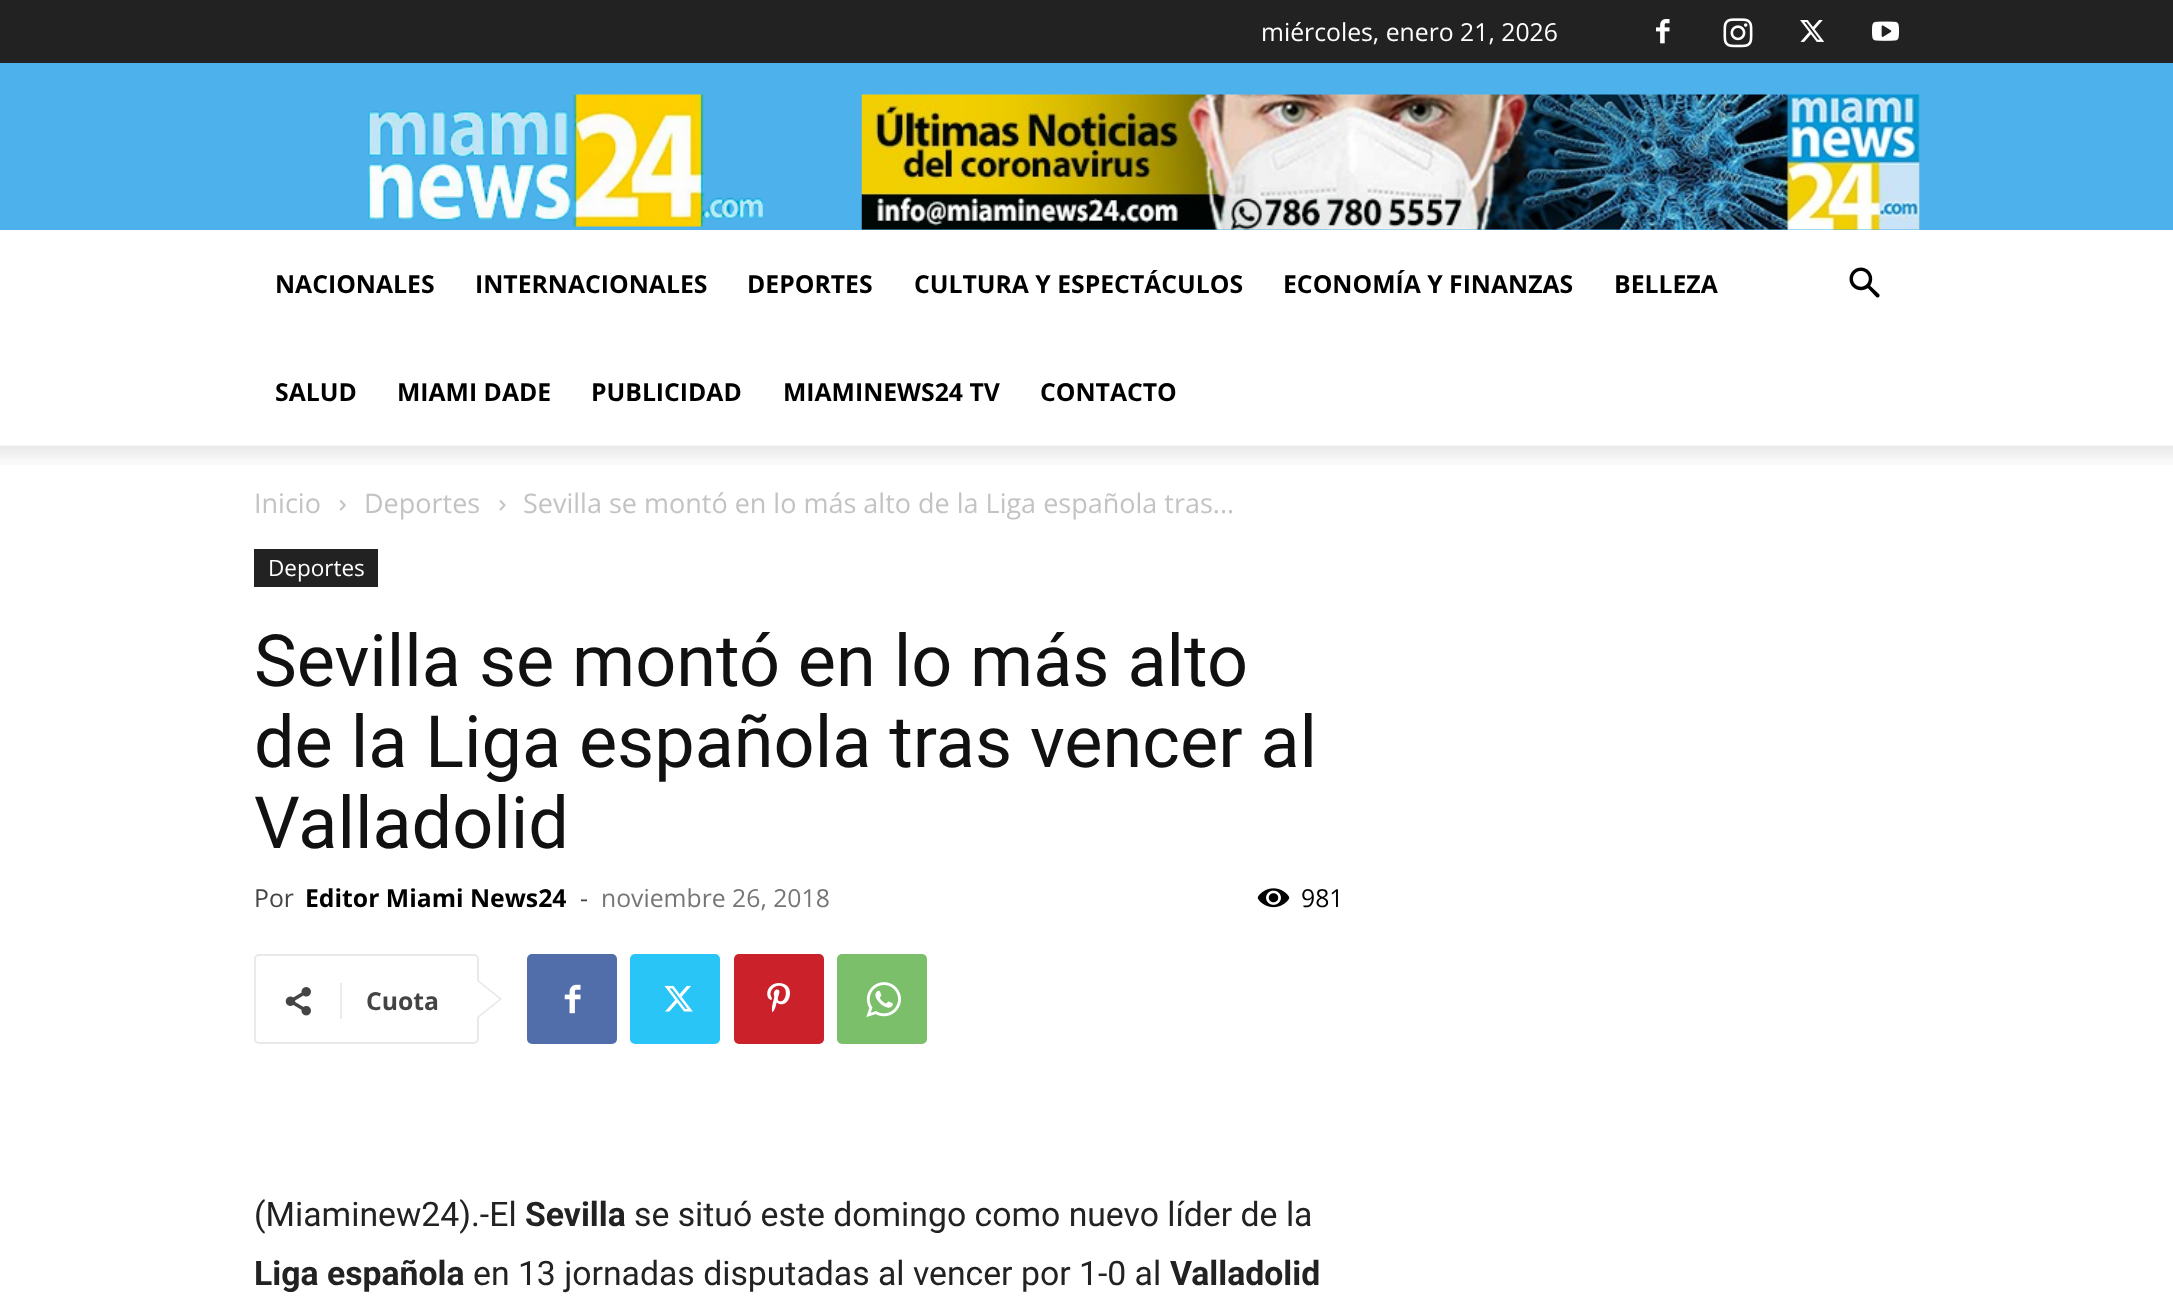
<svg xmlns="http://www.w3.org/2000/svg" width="2173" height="1314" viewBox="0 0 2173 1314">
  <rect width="100%" height="100%" fill="#ffffff"/>
  <rect x="0" y="0" width="2173" height="63" fill="#222222"/>
  <text x="1261" y="41" font-family="Open Sans" font-size="24.75" fill="#ffffff">miércoles, enero 21, 2026</text>
  <image x="1656" y="19" width="14" height="25" href="img1.png"/>
  <image x="1723" y="18" width="30" height="30" href="img2.png"/>
  <image x="1800" y="20" width="25" height="22" href="img3.png"/>
  <image x="1872" y="21" width="27" height="20" href="img4.png"/>
  <rect x="0" y="63" width="2173" height="167" fill="#4db2ec"/>
  <image x="367" y="94" width="396" height="133" href="img5.png"/>
  <image x="861" y="94" width="1059" height="136" href="img6.png"/>
  <text x="275" y="293" font-family="Open Sans" font-size="24.75" font-weight="bold" fill="#000000">NACIONALES</text>
  <text x="475" y="293" font-family="Open Sans" font-size="24.75" font-weight="bold" fill="#000000">INTERNACIONALES</text>
  <text x="747" y="293" font-family="Open Sans" font-size="24.75" font-weight="bold" fill="#000000">DEPORTES</text>
  <text x="914" y="293" font-family="Open Sans" font-size="24.75" font-weight="bold" fill="#000000">CULTURA Y ESPECTÁCULOS</text>
  <text x="1283" y="293" font-family="Open Sans" font-size="24.75" font-weight="bold" fill="#000000">ECONOMÍA Y FINANZAS</text>
  <text x="1614" y="293" font-family="Open Sans" font-size="24.75" font-weight="bold" fill="#000000">BELLEZA</text>
  <text x="275" y="401" font-family="Open Sans" font-size="24.75" font-weight="bold" fill="#000000">SALUD</text>
  <text x="397" y="401" font-family="Open Sans" font-size="24.75" font-weight="bold" fill="#000000">MIAMI DADE</text>
  <text x="591" y="401" font-family="Open Sans" font-size="24.75" font-weight="bold" fill="#000000">PUBLICIDAD</text>
  <text x="783" y="401" font-family="Open Sans" font-size="24.75" font-weight="bold" fill="#000000">MIAMINEWS24 TV</text>
  <text x="1040" y="401" font-family="Open Sans" font-size="24.75" font-weight="bold" fill="#000000">CONTACTO</text>
  <image x="1849" y="267" width="31" height="31" href="img7.png"/>
  <image x="0" y="445" width="2173" height="20" href="img8.png"/>
  <text x="254" y="513" font-family="Open Sans" font-size="27" fill="#c3c3c3">Inicio</text>
  <image x="339" y="500" width="7" height="11" href="img9.png"/>
  <text x="364" y="513" font-family="Open Sans" font-size="27" fill="#c3c3c3">Deportes</text>
  <image x="499" y="500" width="7" height="11" href="img10.png"/>
  <text x="523" y="513" font-family="Open Sans" font-size="27" fill="#c3c3c3">Sevilla se montó en lo más alto de la Liga española tras...</text>
  <rect x="254" y="549" width="124" height="38" fill="#222222"/>
  <text x="268" y="576" font-family="Open Sans" font-size="22.5" fill="#ffffff">Deportes</text>
  <text x="254" y="686" font-family="Roboto" font-size="72" fill="#111111">Sevilla se montó en lo más alto</text>
  <text x="254" y="767" font-family="Roboto" font-size="72" fill="#111111">de la Liga española tras vencer al</text>
  <text x="254" y="848" font-family="Roboto" font-size="72" fill="#111111">Valladolid</text>
  <text x="254" y="907" font-family="Open Sans" font-size="24.75" fill="#444444">Por</text>
  <text x="305" y="907" font-family="Open Sans" font-size="24.75" font-weight="bold" fill="#000000">Editor Miami News24</text>
  <text x="580" y="907" font-family="Open Sans" font-size="24.75" fill="#444444">-</text>
  <text x="601" y="907" font-family="Open Sans" font-size="24.75" fill="#767676">noviembre 26, 2018</text>
  <image x="1257" y="888" width="33" height="20" href="img11.png"/>
  <text x="1301" y="907" font-family="Open Sans" font-size="24.75" fill="#000000">981</text>
  <rect x="255" y="955" width="223" height="88" rx="4" fill="none" stroke="#e9e9e9" stroke-width="2"/>
  <path d="M477 1019V979L502 999Z" fill="#e9e9e9"/>
  <image x="285" y="987" width="26" height="29" href="img12.png"/>
  <rect x="340" y="983" width="2" height="36" fill="#ebebeb"/>
  <text x="366" y="1010" font-family="Open Sans" font-size="24.75" font-weight="bold" fill="#444444">Cuota</text>
  <path d="M477 1017V981L499.5 999Z" fill="#ffffff"/>
  <rect x="527" y="954" width="90" height="90" rx="5" fill="#516eab"/>
  <image x="564" y="984" width="17" height="30" href="img13.png"/>
  <rect x="630" y="954" width="90" height="90" rx="5" fill="#29c5f6"/>
  <image x="664" y="985" width="29" height="27" href="img14.png"/>
  <rect x="734" y="954" width="90" height="90" rx="5" fill="#ca212a"/>
  <image x="767" y="983" width="23" height="30" href="img15.png"/>
  <rect x="837" y="954" width="90" height="90" rx="5" fill="#7bbf6a"/>
  <image x="866" y="982" width="35" height="35" href="img16.png"/>
  <text x="254" y="1226" font-family="Roboto" font-size="33.75" fill="#222222">(Miaminew24).-El</text>
  <text x="525" y="1226" font-family="Roboto" font-size="33.75" font-weight="bold" fill="#222222">Sevilla</text>
  <text x="634" y="1226" font-family="Roboto" font-size="33.75" fill="#222222">se situó este domingo como nuevo líder de la</text>
  <text x="254" y="1285" font-family="Roboto" font-size="33.75" font-weight="bold" fill="#222222">Liga española</text>
  <text x="473" y="1285" font-family="Roboto" font-size="33.75" fill="#222222">en 13 jornadas disputadas al vencer por 1-0 al</text>
  <text x="1170" y="1285" font-family="Roboto" font-size="33.75" font-weight="bold" fill="#222222">Valladolid</text>
</svg>
